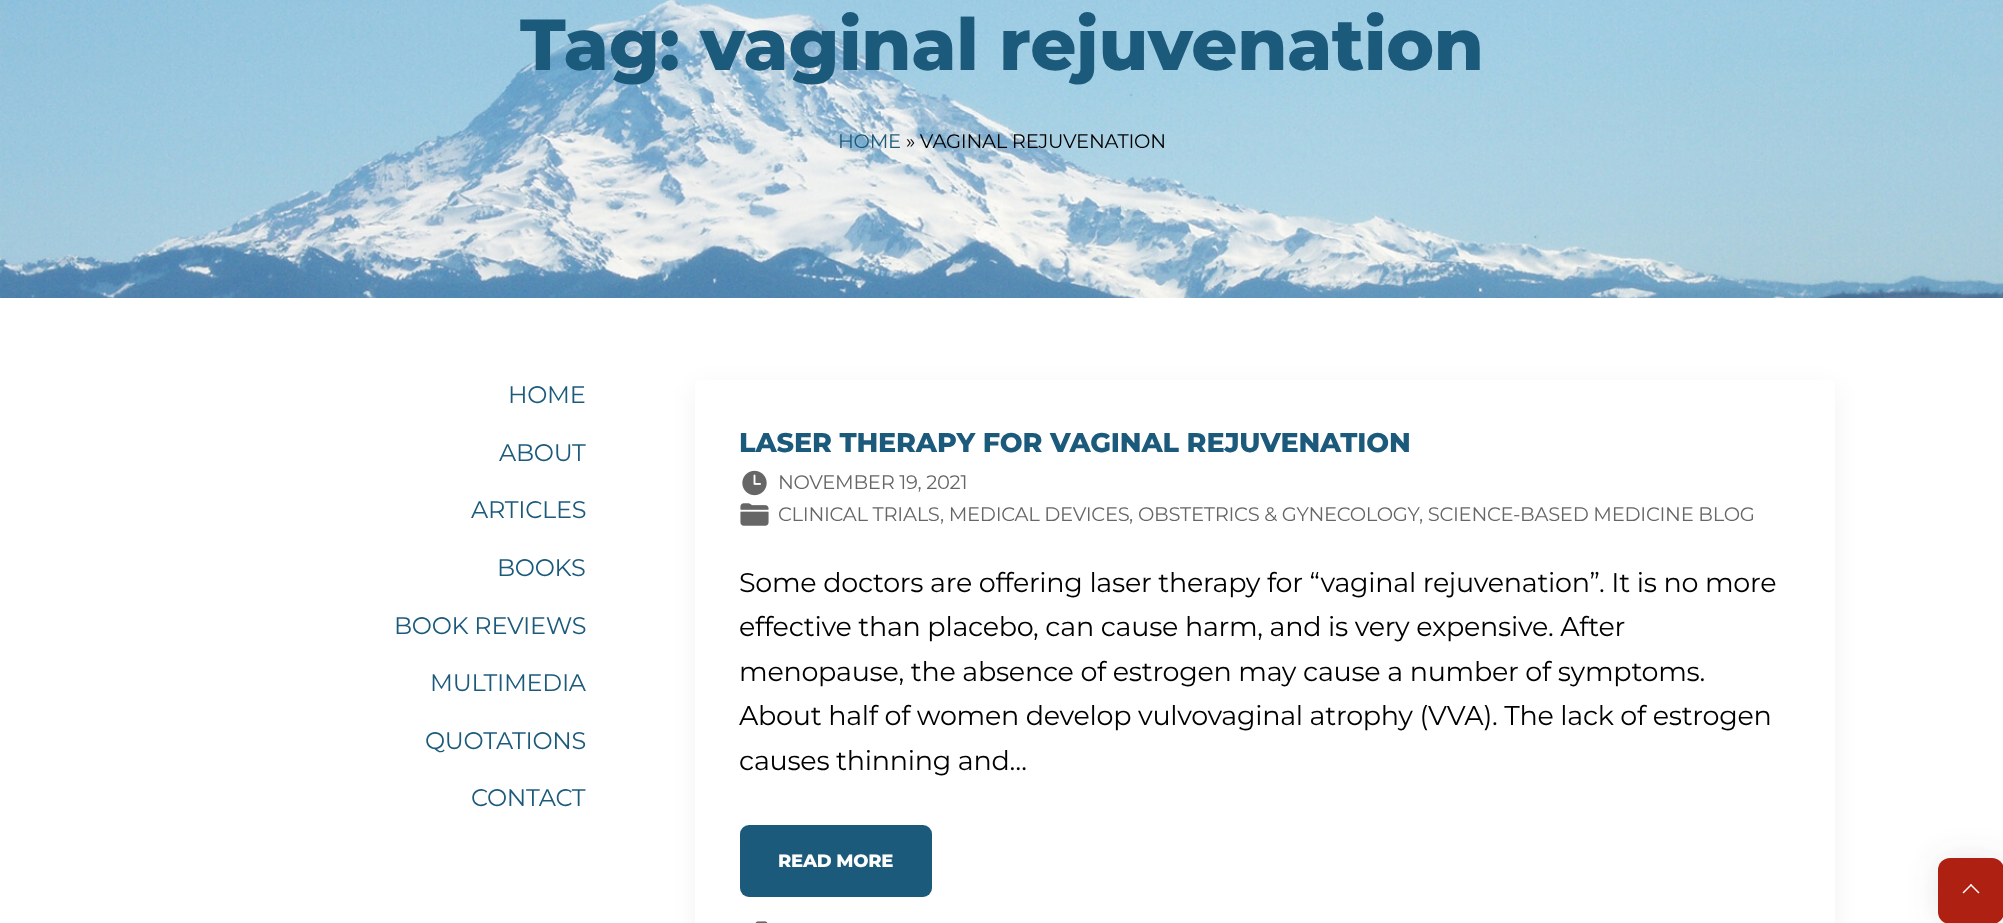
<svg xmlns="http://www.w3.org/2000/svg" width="2003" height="923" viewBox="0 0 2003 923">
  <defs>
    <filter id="blur1" x="-50%" y="-200%" width="200%" height="500%"><feGaussianBlur stdDeviation="12"/></filter>
    <filter id="blur2" x="-50%" y="-200%" width="200%" height="500%"><feGaussianBlur stdDeviation="15"/></filter>
  </defs>
  <rect width="100%" height="100%" fill="#ffffff"/>
  <image x="0" y="0" width="2003" height="298" href="img1.png"/>
  <text x="520" y="70" font-family="Montserrat" font-size="72" font-weight="800" letter-spacing="-0.27" fill="#1c5a7c">Tag: vaginal rejuvenation</text>
  <text x="838" y="148" font-family="Montserrat" font-size="19.5" letter-spacing="-0.27" fill="#1c5a7c">HOME</text>
  <text x="906" y="148" font-family="Montserrat" font-size="19.5" letter-spacing="-0.27" fill="#000000">» VAGINAL REJUVENATION</text>
  <text x="508" y="403" font-family="Montserrat" font-size="24" letter-spacing="-0.27" fill="#1c5a7c">HOME</text>
  <text x="499" y="461" font-family="Montserrat" font-size="24" letter-spacing="-0.27" fill="#1c5a7c">ABOUT</text>
  <text x="471" y="518" font-family="Montserrat" font-size="24" letter-spacing="-0.27" fill="#1c5a7c">ARTICLES</text>
  <text x="497" y="576" font-family="Montserrat" font-size="24" letter-spacing="-0.27" fill="#1c5a7c">BOOKS</text>
  <text x="394" y="634" font-family="Montserrat" font-size="24" letter-spacing="-0.27" fill="#1c5a7c">BOOK REVIEWS</text>
  <text x="430" y="691" font-family="Montserrat" font-size="24" letter-spacing="-0.27" fill="#1c5a7c">MULTIMEDIA</text>
  <text x="425" y="749" font-family="Montserrat" font-size="24" letter-spacing="-0.27" fill="#1c5a7c">QUOTATIONS</text>
  <text x="471" y="806" font-family="Montserrat" font-size="24" letter-spacing="-0.27" fill="#1c5a7c">CONTACT</text>
  <rect x="695" y="386" width="1140" height="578" rx="5" fill="#000000" fill-opacity="0.05" filter="url(#blur1)"/>
  <rect x="695" y="380" width="1140" height="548" rx="5" fill="#ffffff"/>
  <text x="739" y="452" font-family="Montserrat" font-size="27" font-weight="800" letter-spacing="-0.15" fill="#1c5a7c">LASER THERAPY FOR VAGINAL REJUVENATION</text>
  <image x="742" y="470" width="25" height="26" href="img2.png"/>
  <text x="778" y="489" font-family="Montserrat" font-size="19.5" letter-spacing="-0.27" fill="#666666">NOVEMBER 19, 2021</text>
  <image x="740" y="503" width="29" height="23" href="img3.png"/>
  <text x="778" y="521" font-family="Montserrat" font-size="19.5" letter-spacing="-0.27" fill="#666666">CLINICAL TRIALS</text>
  <text x="940" y="521" font-family="Montserrat" font-size="19.5" letter-spacing="-0.27" fill="#666666">, MEDICAL DEVICES</text>
  <text x="1129" y="521" font-family="Montserrat" font-size="19.5" letter-spacing="-0.27" fill="#666666">,</text>
  <text x="1138" y="521" font-family="Montserrat" font-size="19.5" letter-spacing="-0.27" fill="#666666">OBSTETRICS &amp; GYNECOLOGY</text>
  <text x="1419" y="521" font-family="Montserrat" font-size="19.5" letter-spacing="-0.27" fill="#666666">, SCIENCE-BASED MEDICINE BLOG</text>
  <text x="739" y="592" font-family="Montserrat" font-size="27" letter-spacing="-0.27" fill="#000000">Some doctors are offering laser therapy for “vaginal rejuvenation”. It is no more</text>
  <text x="739" y="636" font-family="Montserrat" font-size="27" letter-spacing="-0.27" fill="#000000">effective than placebo, can cause harm, and is very expensive. After</text>
  <text x="739" y="681" font-family="Montserrat" font-size="27" letter-spacing="-0.27" fill="#000000">menopause, the absence of estrogen may cause a number of symptoms.</text>
  <text x="739" y="725" font-family="Montserrat" font-size="27" letter-spacing="-0.27" fill="#000000">About half of women develop vulvovaginal atrophy (VVA). The lack of estrogen</text>
  <text x="739" y="770" font-family="Montserrat" font-size="27" letter-spacing="-0.27" fill="#000000">causes thinning and…</text>
  <rect x="740" y="825" width="192" height="72" rx="9" fill="#1c5a7c"/>
  <text x="778" y="867" font-family="Montserrat" font-size="18" font-weight="800" letter-spacing="-0.27" fill="#ffffff">READ MORE</text>
  <image x="755" y="921" width="13" height="2" href="img4.png"/>
  <rect x="1938" y="858" width="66" height="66" rx="12" fill="#646464" fill-opacity="0.15" filter="url(#blur2)"/>
  <rect x="1938" y="858" width="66" height="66" rx="12" fill="#ae2012"/>
  <path d="M1962.5 892.5L1971 884L1972 885L1963.5 893.5Z" fill="#ffffff"/>
  <path d="M1970 885L1971 884L1979.5 892.5L1978.5 893.5Z" fill="#ffffff"/>
</svg>
